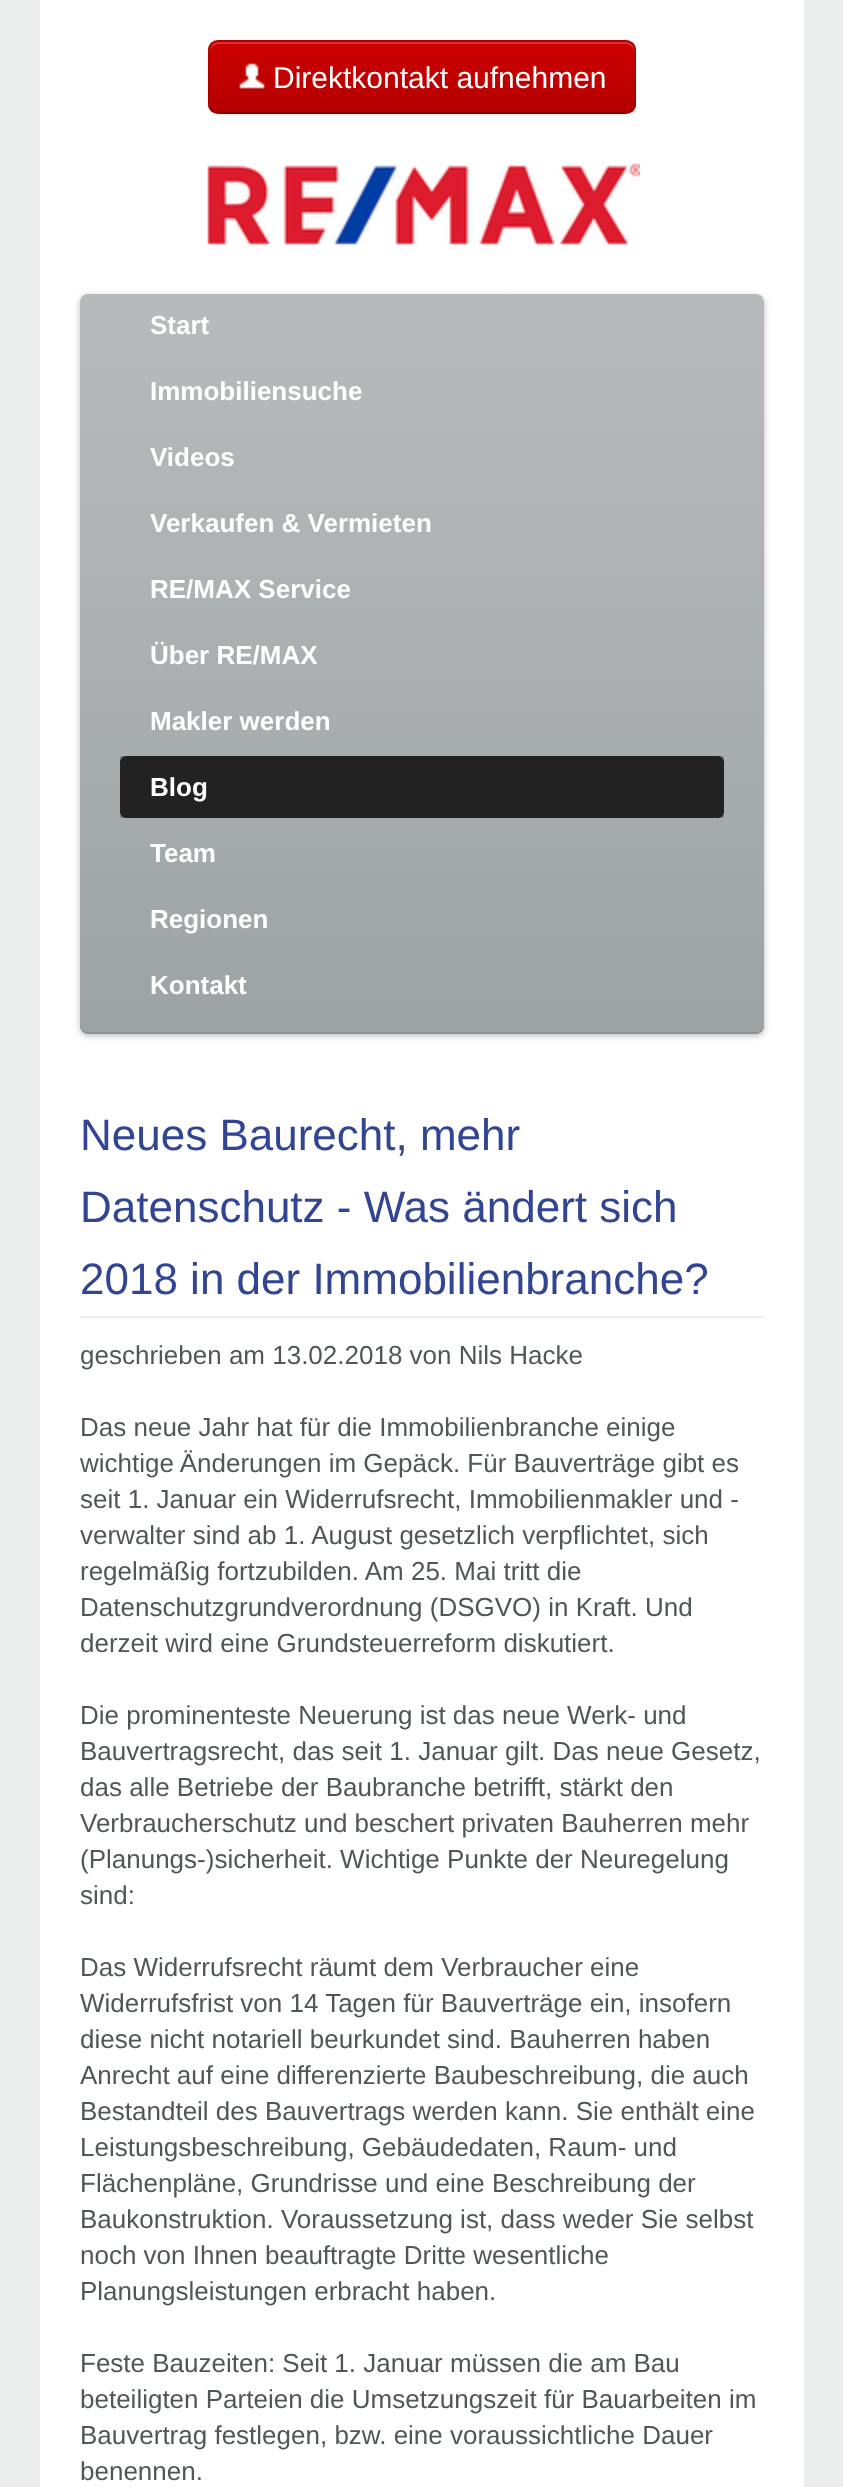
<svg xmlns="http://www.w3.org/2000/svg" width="843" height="2487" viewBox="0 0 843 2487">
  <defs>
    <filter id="blur1" x="-50%" y="-200%" width="200%" height="500%"><feGaussianBlur stdDeviation="2"/></filter>
    <clipPath id="clip1"><rect x="208" y="40" width="428" height="74" rx="10"/></clipPath>
    <linearGradient id="g1" gradientUnits="userSpaceOnUse" x1="422" y1="42" x2="422" y2="112"><stop offset="0" stop-color="#ce0000"/><stop offset="1" stop-color="#b50000"/></linearGradient>
    <filter id="blur2" x="-50%" y="-200%" width="200%" height="500%"><feGaussianBlur stdDeviation="3"/></filter>
    <linearGradient id="g2" gradientUnits="userSpaceOnUse" x1="422" y1="294" x2="422" y2="1034"><stop offset="0" stop-color="#b8bbbb"/><stop offset="1" stop-color="#9da3a3"/></linearGradient>
  </defs>
  <rect width="100%" height="100%" fill="#eceded"/>
  <rect x="40" y="0" width="764" height="2487" fill="#ffffff"/>
  <rect x="208" y="42" width="428" height="74" rx="10" fill="#000000" fill-opacity="0.05" filter="url(#blur1)"/>
  <rect x="208" y="40" width="428" height="74" rx="10" fill="#c40000"/>
  <g clip-path="url(#clip1)">
    <rect x="208" y="42" width="428" height="70" fill="url(#g1)"/>
  </g>
  <path d="M218 44H626C630 44 634 48 634 52V50C634 46 630 42 626 42H218C214 42 210 46 210 50V52C210 48 214 44 218 44Z" fill="#d73333"/>
  <path d="M632.5 110.5C630.5 112 628.5 113 626 113H218C215.5 113 213.5 112 211.5 110.5" fill="none" stroke="#000000" stroke-opacity="0.25" stroke-width="2"/>
  <path d="M211.5 110.5C210 108.5 209 106.5 209 104V50C209 47.5 210 45.5 211.5 43.5C213.5 42 215.5 41 218 41H626C628.5 41 630.5 42 632.5 43.5C634 45.5 635 47.5 635 50V104C635 106.5 634 108.5 632.5 110.5" fill="none" stroke="#000000" stroke-opacity="0.1" stroke-width="2"/>
  <image x="239" y="63" width="26" height="26" href="img1.png"/>
  <text x="273" y="88" font-family="Liberation Sans" font-size="30" fill="#ffffff">Direktkontakt aufnehmen</text>
  <image x="207" y="163" width="433" height="82" href="img2.png"/>
  <rect x="80" y="296" width="684" height="740" rx="8" fill="#000000" fill-opacity="0.25" filter="url(#blur2)"/>
  <rect x="80" y="294" width="684" height="740" rx="8" fill="url(#g2)"/>
  <path d="M80 1024V1026C80 1030 84 1034 88 1034H756C760 1034 764 1030 764 1026V1024C764 1028 760 1032 756 1032H88C84 1032 80 1028 80 1024Z" fill="#000000" fill-opacity="0.1"/>
  <text x="150" y="334" font-family="Liberation Sans" font-size="26" font-weight="bold" fill="#ffffff">Start</text>
  <text x="150" y="400" font-family="Liberation Sans" font-size="26" font-weight="bold" fill="#ffffff">Immobiliensuche</text>
  <text x="150" y="466" font-family="Liberation Sans" font-size="26" font-weight="bold" fill="#ffffff">Videos</text>
  <text x="150" y="532" font-family="Liberation Sans" font-size="26" font-weight="bold" fill="#ffffff">Verkaufen &amp; Vermieten</text>
  <text x="150" y="598" font-family="Liberation Sans" font-size="26" font-weight="bold" fill="#ffffff">RE/MAX Service</text>
  <text x="150" y="664" font-family="Liberation Sans" font-size="26" font-weight="bold" fill="#ffffff">Über RE/MAX</text>
  <text x="150" y="730" font-family="Liberation Sans" font-size="26" font-weight="bold" fill="#ffffff">Makler werden</text>
  <rect x="120" y="756" width="604" height="62" fill="#858989"/>
  <rect x="120" y="756" width="604" height="62" rx="6" fill="#222222"/>
  <text x="150" y="796" font-family="Liberation Sans" font-size="26" font-weight="bold" fill="#ffffff">Blog</text>
  <text x="150" y="862" font-family="Liberation Sans" font-size="26" font-weight="bold" fill="#ffffff">Team</text>
  <text x="150" y="928" font-family="Liberation Sans" font-size="26" font-weight="bold" fill="#ffffff">Regionen</text>
  <text x="150" y="994" font-family="Liberation Sans" font-size="26" font-weight="bold" fill="#ffffff">Kontakt</text>
  <rect x="80" y="1316" width="684" height="2" fill="#eceded"/>
  <text x="80" y="1150" font-family="Liberation Sans" font-size="44" fill="#314594">Neues Baurecht, mehr</text>
  <text x="80" y="1222" font-family="Liberation Sans" font-size="44" fill="#314594">Datenschutz - Was ändert sich</text>
  <text x="80" y="1294" font-family="Liberation Sans" font-size="44" fill="#314594">2018 in der Immobilienbranche?</text>
  <text x="80" y="1364" font-family="Liberation Sans" font-size="26" fill="#515656">geschrieben am 13.02.2018 von Nils Hacke</text>
  <text x="80" y="1436" font-family="Liberation Sans" font-size="26" fill="#515656">Das neue Jahr hat für die Immobilienbranche einige</text>
  <text x="80" y="1472" font-family="Liberation Sans" font-size="26" fill="#515656">wichtige Änderungen im Gepäck. Für Bauverträge gibt es</text>
  <text x="80" y="1508" font-family="Liberation Sans" font-size="26" fill="#515656">seit 1. Januar ein Widerrufsrecht, Immobilienmakler und -</text>
  <text x="80" y="1544" font-family="Liberation Sans" font-size="26" fill="#515656">verwalter sind ab 1. August gesetzlich verpflichtet, sich</text>
  <text x="80" y="1580" font-family="Liberation Sans" font-size="26" fill="#515656">regelmäßig fortzubilden. Am 25. Mai tritt die</text>
  <text x="80" y="1616" font-family="Liberation Sans" font-size="26" fill="#515656">Datenschutzgrundverordnung (DSGVO) in Kraft. Und</text>
  <text x="80" y="1652" font-family="Liberation Sans" font-size="26" fill="#515656">derzeit wird eine Grundsteuerreform diskutiert.</text>
  <text x="80" y="1724" font-family="Liberation Sans" font-size="26" fill="#515656">Die prominenteste Neuerung ist das neue Werk- und</text>
  <text x="80" y="1760" font-family="Liberation Sans" font-size="26" fill="#515656">Bauvertragsrecht, das seit 1. Januar gilt. Das neue Gesetz,</text>
  <text x="80" y="1796" font-family="Liberation Sans" font-size="26" fill="#515656">das alle Betriebe der Baubranche betrifft, stärkt den</text>
  <text x="80" y="1832" font-family="Liberation Sans" font-size="26" fill="#515656">Verbraucherschutz und beschert privaten Bauherren mehr</text>
  <text x="80" y="1868" font-family="Liberation Sans" font-size="26" fill="#515656">(Planungs-)sicherheit. Wichtige Punkte der Neuregelung</text>
  <text x="80" y="1904" font-family="Liberation Sans" font-size="26" fill="#515656">sind:</text>
  <text x="80" y="1976" font-family="Liberation Sans" font-size="26" fill="#515656">Das Widerrufsrecht räumt dem Verbraucher eine</text>
  <text x="80" y="2012" font-family="Liberation Sans" font-size="26" fill="#515656">Widerrufsfrist von 14 Tagen für Bauverträge ein, insofern</text>
  <text x="80" y="2048" font-family="Liberation Sans" font-size="26" fill="#515656">diese nicht notariell beurkundet sind. Bauherren haben</text>
  <text x="80" y="2084" font-family="Liberation Sans" font-size="26" fill="#515656">Anrecht auf eine differenzierte Baubeschreibung, die auch</text>
  <text x="80" y="2120" font-family="Liberation Sans" font-size="26" fill="#515656">Bestandteil des Bauvertrags werden kann. Sie enthält eine</text>
  <text x="80" y="2156" font-family="Liberation Sans" font-size="26" fill="#515656">Leistungsbeschreibung, Gebäudedaten, Raum- und</text>
  <text x="80" y="2192" font-family="Liberation Sans" font-size="26" fill="#515656">Flächenpläne, Grundrisse und eine Beschreibung der</text>
  <text x="80" y="2228" font-family="Liberation Sans" font-size="26" fill="#515656">Baukonstruktion. Voraussetzung ist, dass weder Sie selbst</text>
  <text x="80" y="2264" font-family="Liberation Sans" font-size="26" fill="#515656">noch von Ihnen beauftragte Dritte wesentliche</text>
  <text x="80" y="2300" font-family="Liberation Sans" font-size="26" fill="#515656">Planungsleistungen erbracht haben.</text>
  <text x="80" y="2372" font-family="Liberation Sans" font-size="26" fill="#515656">Feste Bauzeiten: Seit 1. Januar müssen die am Bau</text>
  <text x="80" y="2408" font-family="Liberation Sans" font-size="26" fill="#515656">beteiligten Parteien die Umsetzungszeit für Bauarbeiten im</text>
  <text x="80" y="2444" font-family="Liberation Sans" font-size="26" fill="#515656">Bauvertrag festlegen, bzw. eine voraussichtliche Dauer</text>
  <text x="80" y="2480" font-family="Liberation Sans" font-size="26" fill="#515656">benennen.</text>
</svg>
